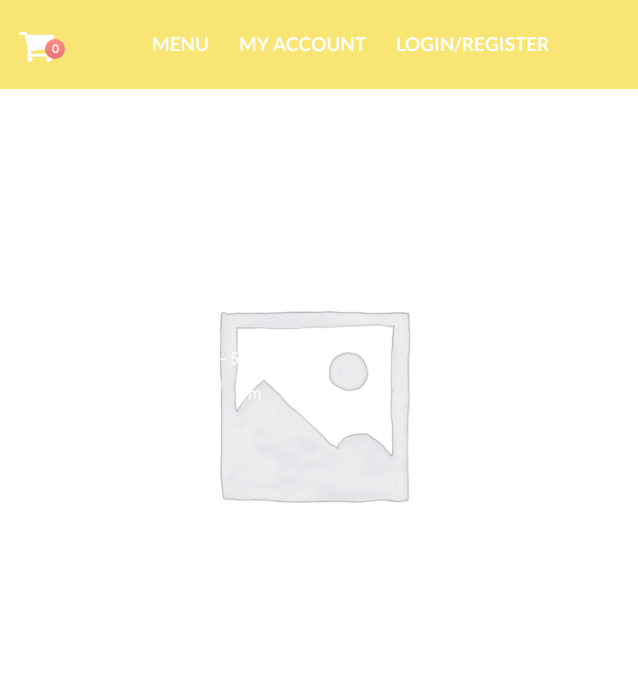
<svg xmlns="http://www.w3.org/2000/svg" width="638" height="697" viewBox="0 0 638 697">
  <defs>
    <linearGradient id="g1" gradientUnits="userSpaceOnUse" x1="55" y1="39" x2="55" y2="59"><stop offset="0" stop-color="#ff8d81"/><stop offset="1" stop-color="#e57575"/></linearGradient>
  </defs>
  <rect width="100%" height="100%" fill="#ffffff"/>
  <rect x="0" y="0" width="638" height="89" fill="#f9e573"/>
  <image x="19" y="32" width="36" height="30" href="img1.png"/>
  <circle cx="55" cy="49" r="10" fill="url(#g1)"/>
  <text x="52" y="53" font-family="Lato" font-size="12" font-weight="bold" fill="#ffffff">0</text>
  <text x="152" y="51" font-family="Lato" font-size="19" font-weight="bold" fill="#ffffff">MENU</text>
  <text x="239" y="51" font-family="Lato" font-size="19" font-weight="bold" fill="#ffffff">MY ACCOUNT</text>
  <text x="396" y="51" font-family="Lato" font-size="19" font-weight="bold" fill="#ffffff">LOGIN/REGISTER</text>
  <image x="219" y="310" width="192" height="194" href="img2.png"/>
  <text x="218" y="364" font-family="Lato" font-size="16" fill="#ffffff">– 5</text>
  <text x="248" y="399" font-family="Lato" font-size="16" fill="#ffffff">m</text>
</svg>
